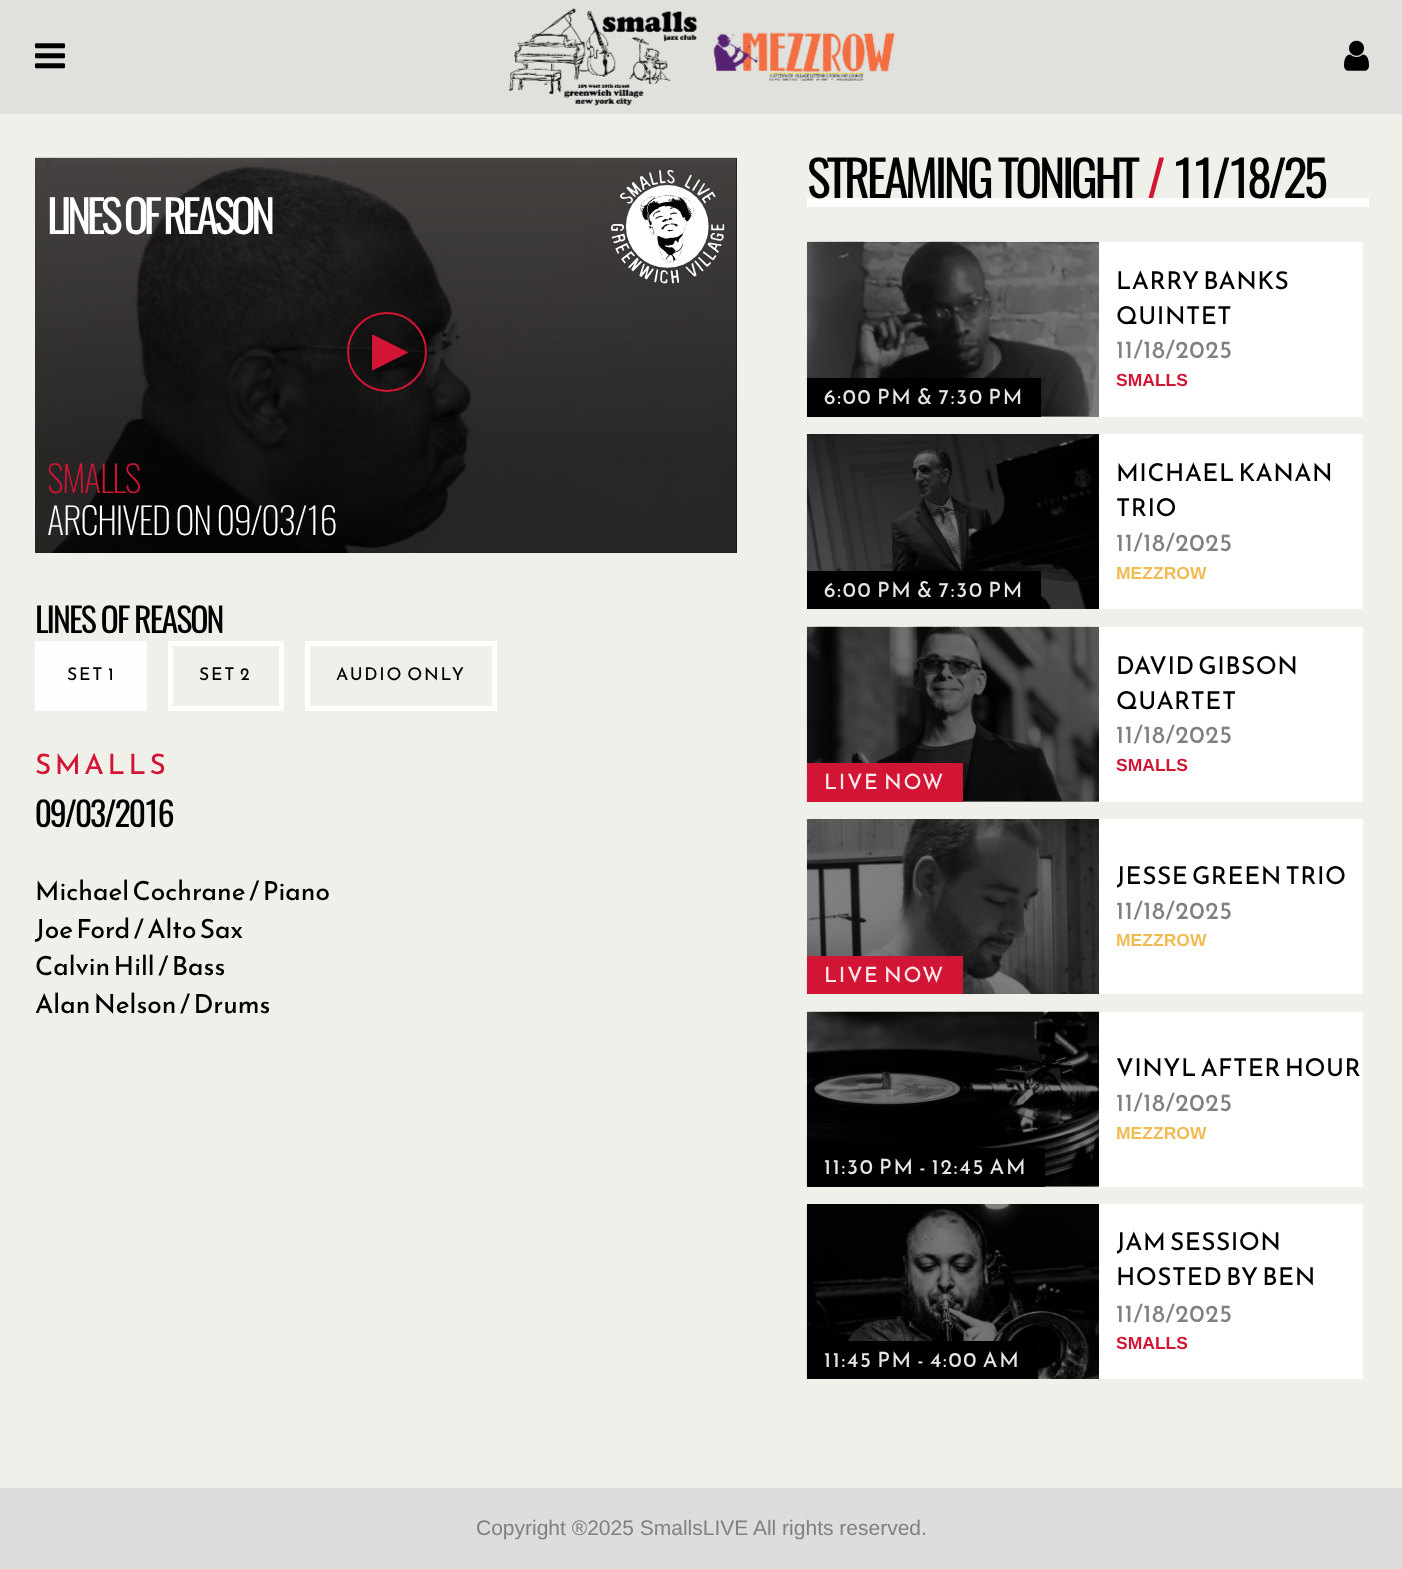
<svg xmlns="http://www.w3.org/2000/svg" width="1402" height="1569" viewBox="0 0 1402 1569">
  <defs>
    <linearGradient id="g1" gradientUnits="userSpaceOnUse" x1="386" y1="133" x2="386" y2="553"><stop offset="0" stop-color="#000000" stop-opacity="0"/><stop offset="0.77" stop-color="#000000" stop-opacity="0.4"/><stop offset="1" stop-color="#000000" stop-opacity="0.4"/></linearGradient>
    <clipPath id="clip1"><rect x="1117" y="859" width="246" height="35"/></clipPath>
    <clipPath id="clip2"><rect x="1117" y="1227" width="246" height="70"/></clipPath>
  </defs>
  <rect width="100%" height="100%" fill="#f0f0eb"/>
  <rect x="0" y="0" width="1402" height="114" fill="#e0e0dc"/>
  <image x="509" y="8" width="189" height="98" href="img1.png"/>
  <image x="713" y="32" width="182" height="49" href="img2.png"/>
  <image x="35" y="43" width="30" height="26" href="img3.png"/>
  <image x="1344" y="40" width="25" height="31" href="img4.png"/>
  <rect x="736" y="158" width="1" height="395" fill="#000000"/>
  <image x="35" y="157" width="702" height="396" href="img5.png"/>
  <rect x="35" y="163" width="702" height="390" fill="url(#g1)"/>
  <circle cx="387" cy="352" r="39" fill="none" stroke="#d21535" stroke-width="2"/>
  <image x="371" y="334" width="37" height="37" href="img6.png"/>
  <text x="47" y="234" font-family="Oswald" font-size="45.5" letter-spacing="-4.5" fill="#ffffff">LINES OF REASON</text>
  <image x="611" y="170" width="114" height="114" href="img7.png"/>
  <text x="47" y="493" font-family="Oswald" font-size="36.5" font-weight="200" letter-spacing="-1.25" fill="#d21535">SMALLS</text>
  <text x="47" y="535" font-family="Oswald" font-size="36.5" font-weight="200" letter-spacing="-1.1" fill="#ffffff">ARCHIVED ON 09/03/16</text>
  <text x="35" y="633" font-family="Oswald" font-size="34" letter-spacing="-2" fill="#000000">LINES OF REASON</text>
  <rect x="37.5" y="643.5" width="107" height="65" fill="#fefefd" stroke="#ffffff" stroke-width="5"/>
  <text x="67" y="680" font-family="Reem Kufi" font-size="17.5" letter-spacing="1.75" fill="#000000">SET 1</text>
  <rect x="170.5" y="643.5" width="111" height="65" fill="none" stroke="#fefefd" stroke-width="5"/>
  <text x="199" y="680" font-family="Reem Kufi" font-size="17.5" letter-spacing="1.75" fill="#000000">SET 2</text>
  <rect x="307.5" y="643.5" width="187" height="65" fill="none" stroke="#fefefd" stroke-width="5"/>
  <text x="336" y="680" font-family="Reem Kufi" font-size="17.5" letter-spacing="1.75" fill="#000000">AUDIO ONLY</text>
  <text x="35" y="774" font-family="Reem Kufi" font-size="28" letter-spacing="3.5" fill="#d21535">SMALLS</text>
  <text x="35" y="827" font-family="Oswald" font-size="34" letter-spacing="-1.9" fill="#000000">09/03/2016</text>
  <text x="35" y="900" font-family="Reem Kufi" font-size="26.25" fill="#000000">Michael Cochrane / Piano</text>
  <text x="35" y="938" font-family="Reem Kufi" font-size="26.25" fill="#000000">Joe Ford / Alto Sax</text>
  <text x="35" y="975" font-family="Reem Kufi" font-size="26.25" fill="#000000">Calvin Hill / Bass</text>
  <text x="35" y="1013" font-family="Reem Kufi" font-size="26.25" fill="#000000">Alan Nelson / Drums</text>
  <rect x="807" y="198" width="562" height="9" fill="#fefefd"/>
  <text x="807" y="198" font-family="Oswald" font-size="50" letter-spacing="-3.3" fill="#000000">STREAMING TONIGHT</text>
  <text x="1147" y="198" font-family="Oswald" font-size="50" letter-spacing="-2" fill="#d21535">/</text>
  <text x="1172" y="198" font-family="Oswald" font-size="50" letter-spacing="-3.25" fill="#000000">11/18/25</text>
  <rect x="1099" y="242" width="264" height="175" fill="#ffffff"/>
  <rect x="1041" y="416" width="58" height="1" fill="#808080"/>
  <text x="1116" y="289" font-family="Reem Kufi" font-size="24.5" letter-spacing="0.5" fill="#000000">LARRY BANKS</text>
  <text x="1116" y="324" font-family="Reem Kufi" font-size="24.5" letter-spacing="0.5" fill="#000000">QUINTET</text>
  <text x="1116" y="358" font-family="Reem Kufi" font-size="24.5" letter-spacing="0.5" fill="#808080">11/18/2025</text>
  <text x="1116" y="386" font-family="Liberation Sans" font-size="17.5" font-weight="bold" fill="#d21535">SMALLS</text>
  <image x="806" y="241" width="293" height="176" href="img8.png"/>
  <rect x="807" y="378" width="234" height="39" fill="#000000"/>
  <text x="824" y="404" font-family="Reem Kufi" font-size="21" letter-spacing="1.75" fill="#e6e6e6">6:00 PM &amp; 7:30 PM</text>
  <rect x="1099" y="434" width="264" height="175" fill="#ffffff"/>
  <text x="1116" y="481" font-family="Reem Kufi" font-size="24.5" letter-spacing="0.5" fill="#000000">MICHAEL KANAN</text>
  <text x="1116" y="516" font-family="Reem Kufi" font-size="24.5" letter-spacing="0.5" fill="#000000">TRIO</text>
  <text x="1116" y="551" font-family="Reem Kufi" font-size="24.5" letter-spacing="0.5" fill="#808080">11/18/2025</text>
  <text x="1116" y="579" font-family="Liberation Sans" font-size="17.5" font-weight="bold" fill="#f1bb53">MEZZROW</text>
  <image x="806" y="434" width="293" height="175" href="img9.png"/>
  <rect x="807" y="571" width="234" height="38" fill="#000000"/>
  <text x="824" y="597" font-family="Reem Kufi" font-size="21" letter-spacing="1.75" fill="#e6e6e6">6:00 PM &amp; 7:30 PM</text>
  <rect x="1099" y="627" width="264" height="175" fill="#ffffff"/>
  <rect x="963" y="801" width="136" height="1" fill="#808080"/>
  <text x="1116" y="674" font-family="Reem Kufi" font-size="24.5" letter-spacing="0.5" fill="#000000">DAVID GIBSON</text>
  <text x="1116" y="709" font-family="Reem Kufi" font-size="24.5" letter-spacing="0.5" fill="#000000">QUARTET</text>
  <text x="1116" y="743" font-family="Reem Kufi" font-size="24.5" letter-spacing="0.5" fill="#808080">11/18/2025</text>
  <text x="1116" y="771" font-family="Liberation Sans" font-size="17.5" font-weight="bold" fill="#d21535">SMALLS</text>
  <image x="806" y="626" width="293" height="176" href="img10.png"/>
  <rect x="807" y="763" width="156" height="39" fill="#d21535"/>
  <text x="824" y="789" font-family="Reem Kufi" font-size="21" letter-spacing="1.75" fill="#fbe8eb">LIVE NOW</text>
  <rect x="1099" y="819" width="264" height="175" fill="#ffffff"/>
  <g clip-path="url(#clip1)">
    <text x="1116" y="884" font-family="Reem Kufi" font-size="24.5" letter-spacing="0.5" fill="#000000">JESSE GREEN TRIO</text>
  </g>
  <text x="1116" y="919" font-family="Reem Kufi" font-size="24.5" letter-spacing="0.5" fill="#808080">11/18/2025</text>
  <text x="1116" y="946" font-family="Liberation Sans" font-size="17.5" font-weight="bold" fill="#f1bb53">MEZZROW</text>
  <image x="806" y="819" width="293" height="175" href="img11.png"/>
  <rect x="807" y="956" width="156" height="38" fill="#d21535"/>
  <text x="824" y="982" font-family="Reem Kufi" font-size="21" letter-spacing="1.75" fill="#fbe8eb">LIVE NOW</text>
  <rect x="1099" y="1012" width="264" height="175" fill="#ffffff"/>
  <rect x="1045" y="1186" width="54" height="1" fill="#808080"/>
  <text x="1116" y="1076" font-family="Reem Kufi" font-size="24.5" letter-spacing="0.5" fill="#000000">VINYL AFTER HOUR</text>
  <text x="1116" y="1111" font-family="Reem Kufi" font-size="24.5" letter-spacing="0.5" fill="#808080">11/18/2025</text>
  <text x="1116" y="1139" font-family="Liberation Sans" font-size="17.5" font-weight="bold" fill="#f1bb53">MEZZROW</text>
  <image x="806" y="1011" width="293" height="176" href="img12.png"/>
  <rect x="807" y="1148" width="238" height="39" fill="#000000"/>
  <text x="824" y="1174" font-family="Reem Kufi" font-size="21" letter-spacing="1.75" fill="#e6e6e6">11:30 PM - 12:45 AM</text>
  <rect x="1099" y="1204" width="264" height="175" fill="#ffffff"/>
  <g clip-path="url(#clip2)">
    <text x="1116" y="1250" font-family="Reem Kufi" font-size="24.5" letter-spacing="0.5" fill="#000000">JAM SESSION</text>
  </g>
  <text x="1116" y="1285" font-family="Reem Kufi" font-size="24.5" letter-spacing="0.5" fill="#000000">HOSTED BY BEN</text>
  <text x="1116" y="1322" font-family="Reem Kufi" font-size="24.5" letter-spacing="0.5" fill="#808080">11/18/2025</text>
  <text x="1116" y="1349" font-family="Liberation Sans" font-size="17.5" font-weight="bold" fill="#d21535">SMALLS</text>
  <image x="806" y="1204" width="293" height="175" href="img13.png"/>
  <rect x="807" y="1341" width="231" height="38" fill="#000000"/>
  <text x="824" y="1367" font-family="Reem Kufi" font-size="21" letter-spacing="1.75" fill="#e6e6e6">11:45 PM - 4:00 AM</text>
  <rect x="0" y="1488" width="1402" height="81" fill="#dddddd"/>
  <text x="476" y="1535" font-family="Liberation Sans" font-size="21" fill="#808080">Copyright ®2025 SmallsLIVE All rights reserved.</text>
</svg>
